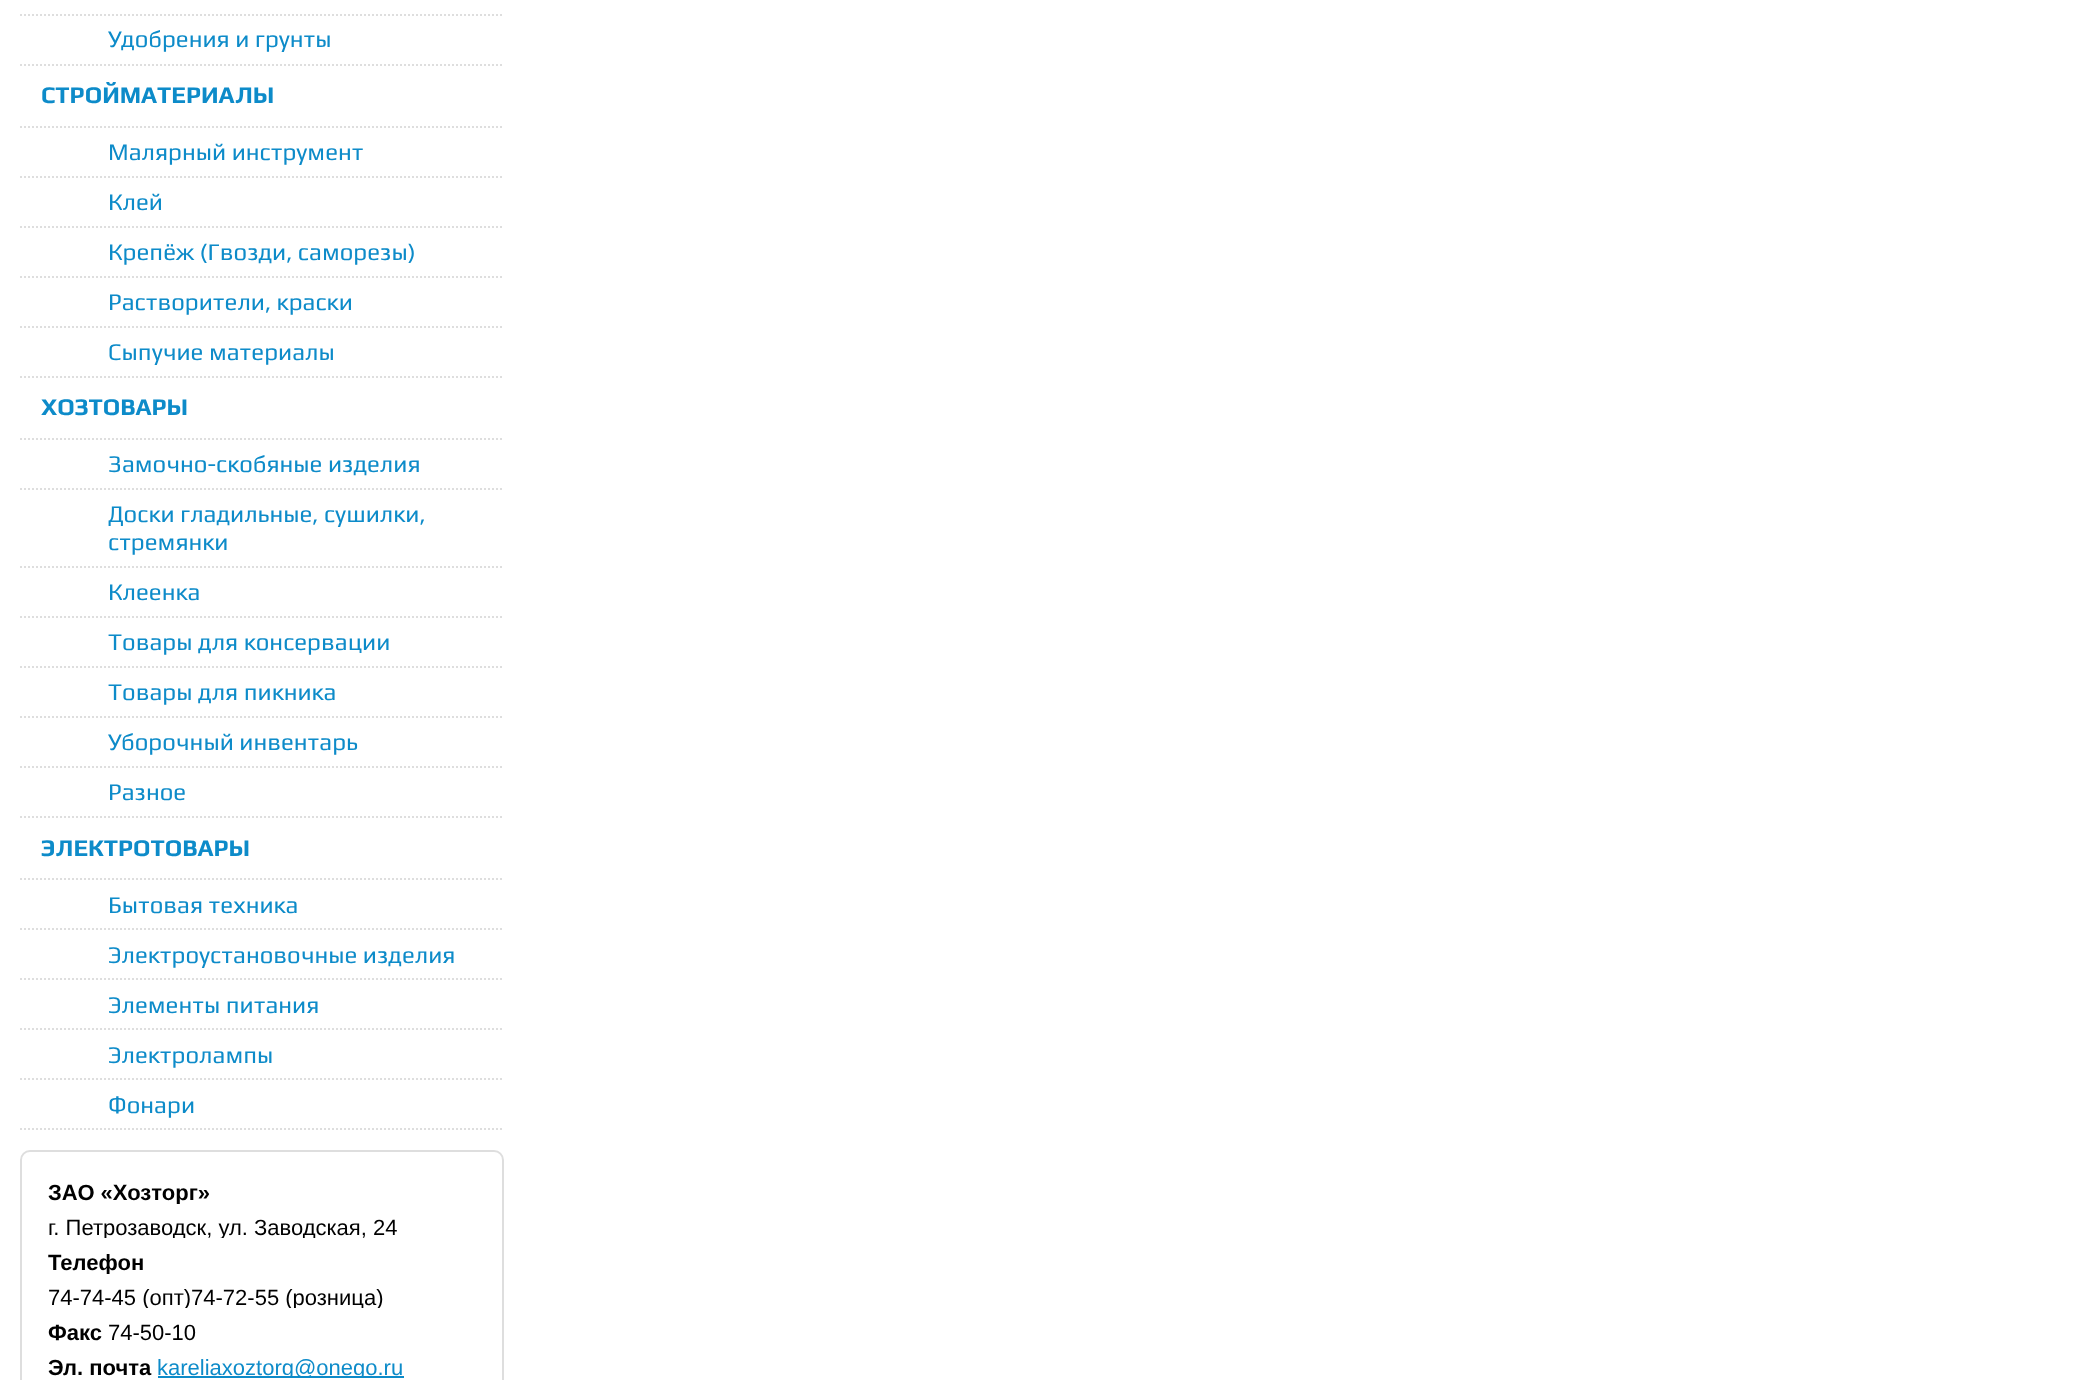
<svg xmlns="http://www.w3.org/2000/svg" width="2092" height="1380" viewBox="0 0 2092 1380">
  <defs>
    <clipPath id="clip1"><rect x="48" y="1180" width="428" height="24"/></clipPath>
    <clipPath id="clip2"><rect x="48" y="1214" width="428" height="24"/></clipPath>
    <clipPath id="clip3"><rect x="48" y="1250" width="428" height="24"/></clipPath>
    <clipPath id="clip4"><rect x="48" y="1284" width="428" height="24"/></clipPath>
    <clipPath id="clip5"><rect x="48" y="1354" width="428" height="24"/></clipPath>
  </defs>
  <rect width="100%" height="100%" fill="#ffffff"/>
  <path d="M20 1129H504" fill="none" stroke="#dedede" stroke-width="2" stroke-dasharray="2 2"/>
  <path d="M20 15H504" fill="none" stroke="#dedede" stroke-width="2" stroke-dasharray="2 2"/>
  <text x="108" y="47" font-family="Play" font-size="24" fill="#0d8bc9">Удобрения и грунты</text>
  <path d="M20 65H504" fill="none" stroke="#dedede" stroke-width="2" stroke-dasharray="2 2"/>
  <text x="41" y="103" font-family="Play" font-size="24" font-weight="bold" fill="#0d8bc9">СТРОЙМАТЕРИАЛЫ</text>
  <path d="M20 127H504" fill="none" stroke="#dedede" stroke-width="2" stroke-dasharray="2 2"/>
  <text x="108" y="160" font-family="Play" font-size="24" fill="#0d8bc9">Малярный инструмент</text>
  <path d="M20 177H504" fill="none" stroke="#dedede" stroke-width="2" stroke-dasharray="2 2"/>
  <text x="108" y="210" font-family="Play" font-size="24" fill="#0d8bc9">Клей</text>
  <path d="M20 227H504" fill="none" stroke="#dedede" stroke-width="2" stroke-dasharray="2 2"/>
  <text x="108" y="260" font-family="Play" font-size="24" fill="#0d8bc9">Крепёж (Гвозди, саморезы)</text>
  <path d="M20 277H504" fill="none" stroke="#dedede" stroke-width="2" stroke-dasharray="2 2"/>
  <text x="108" y="310" font-family="Play" font-size="24" fill="#0d8bc9">Растворители, краски</text>
  <path d="M20 327H504" fill="none" stroke="#dedede" stroke-width="2" stroke-dasharray="2 2"/>
  <text x="108" y="360" font-family="Play" font-size="24" fill="#0d8bc9">Сыпучие материалы</text>
  <path d="M20 377H504" fill="none" stroke="#dedede" stroke-width="2" stroke-dasharray="2 2"/>
  <text x="41" y="415" font-family="Play" font-size="24" font-weight="bold" fill="#0d8bc9">ХОЗТОВАРЫ</text>
  <path d="M20 439H504" fill="none" stroke="#dedede" stroke-width="2" stroke-dasharray="2 2"/>
  <text x="108" y="472" font-family="Play" font-size="24" fill="#0d8bc9">Замочно-скобяные изделия</text>
  <path d="M20 489H504" fill="none" stroke="#dedede" stroke-width="2" stroke-dasharray="2 2"/>
  <text x="108" y="522" font-family="Play" font-size="24" fill="#0d8bc9">Доски гладильные, сушилки,</text>
  <text x="108" y="550" font-family="Play" font-size="24" fill="#0d8bc9">стремянки</text>
  <path d="M20 567H504" fill="none" stroke="#dedede" stroke-width="2" stroke-dasharray="2 2"/>
  <text x="108" y="600" font-family="Play" font-size="24" fill="#0d8bc9">Клеенка</text>
  <path d="M20 617H504" fill="none" stroke="#dedede" stroke-width="2" stroke-dasharray="2 2"/>
  <text x="108" y="650" font-family="Play" font-size="24" fill="#0d8bc9">Товары для консервации</text>
  <path d="M20 667H504" fill="none" stroke="#dedede" stroke-width="2" stroke-dasharray="2 2"/>
  <text x="108" y="700" font-family="Play" font-size="24" fill="#0d8bc9">Товары для пикника</text>
  <path d="M20 717H504" fill="none" stroke="#dedede" stroke-width="2" stroke-dasharray="2 2"/>
  <text x="108" y="750" font-family="Play" font-size="24" fill="#0d8bc9">Уборочный инвентарь</text>
  <path d="M20 767H504" fill="none" stroke="#dedede" stroke-width="2" stroke-dasharray="2 2"/>
  <text x="108" y="800" font-family="Play" font-size="24" fill="#0d8bc9">Разное</text>
  <path d="M20 817H504" fill="none" stroke="#dedede" stroke-width="2" stroke-dasharray="2 2"/>
  <text x="41" y="856" font-family="Play" font-size="24" font-weight="bold" fill="#0d8bc9">ЭЛЕКТРОТОВАРЫ</text>
  <path d="M20 879H504" fill="none" stroke="#dedede" stroke-width="2" stroke-dasharray="2 2"/>
  <text x="108" y="913" font-family="Play" font-size="24" fill="#0d8bc9">Бытовая техника</text>
  <path d="M20 929H504" fill="none" stroke="#dedede" stroke-width="2" stroke-dasharray="2 2"/>
  <text x="108" y="963" font-family="Play" font-size="24" fill="#0d8bc9">Электроустановочные изделия</text>
  <path d="M20 979H504" fill="none" stroke="#dedede" stroke-width="2" stroke-dasharray="2 2"/>
  <text x="108" y="1013" font-family="Play" font-size="24" fill="#0d8bc9">Элементы питания</text>
  <path d="M20 1029H504" fill="none" stroke="#dedede" stroke-width="2" stroke-dasharray="2 2"/>
  <text x="108" y="1063" font-family="Play" font-size="24" fill="#0d8bc9">Электролампы</text>
  <path d="M20 1079H504" fill="none" stroke="#dedede" stroke-width="2" stroke-dasharray="2 2"/>
  <text x="108" y="1113" font-family="Play" font-size="24" fill="#0d8bc9">Фонари</text>
  <rect x="21" y="1151" width="482" height="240" rx="9" fill="none" stroke="#dedede" stroke-width="2"/>
  <g clip-path="url(#clip1)">
    <text x="48" y="1200" font-family="Liberation Sans" font-size="22" font-weight="bold" fill="#000000">ЗАО «Хозторг»</text>
  </g>
  <g clip-path="url(#clip2)">
    <text x="48" y="1235" font-family="Liberation Sans" font-size="22" fill="#000000">г. Петрозаводск, ул. Заводская, 24</text>
  </g>
  <g clip-path="url(#clip3)">
    <text x="48" y="1270" font-family="Liberation Sans" font-size="22" font-weight="bold" fill="#000000">Телефон</text>
  </g>
  <g clip-path="url(#clip4)">
    <text x="48" y="1305" font-family="Liberation Sans" font-size="22" fill="#000000">74-74-45 (опт)74-72-55 (розница)</text>
  </g>
  <text x="48" y="1340" font-family="Liberation Sans" font-size="22" font-weight="bold" fill="#000000">Факс</text>
  <text x="108" y="1340" font-family="Liberation Sans" font-size="22" fill="#000000">74-50-10</text>
  <text x="48" y="1375" font-family="Liberation Sans" font-size="22" font-weight="bold" fill="#000000">Эл. почта</text>
  <rect x="158" y="1376" width="246" height="2" fill="#0d8bc9"/>
  <g clip-path="url(#clip5)">
    <text x="157" y="1375" font-family="Liberation Sans" font-size="22" fill="#0d8bc9">kareliaxoztorg@onego.ru</text>
  </g>
</svg>
